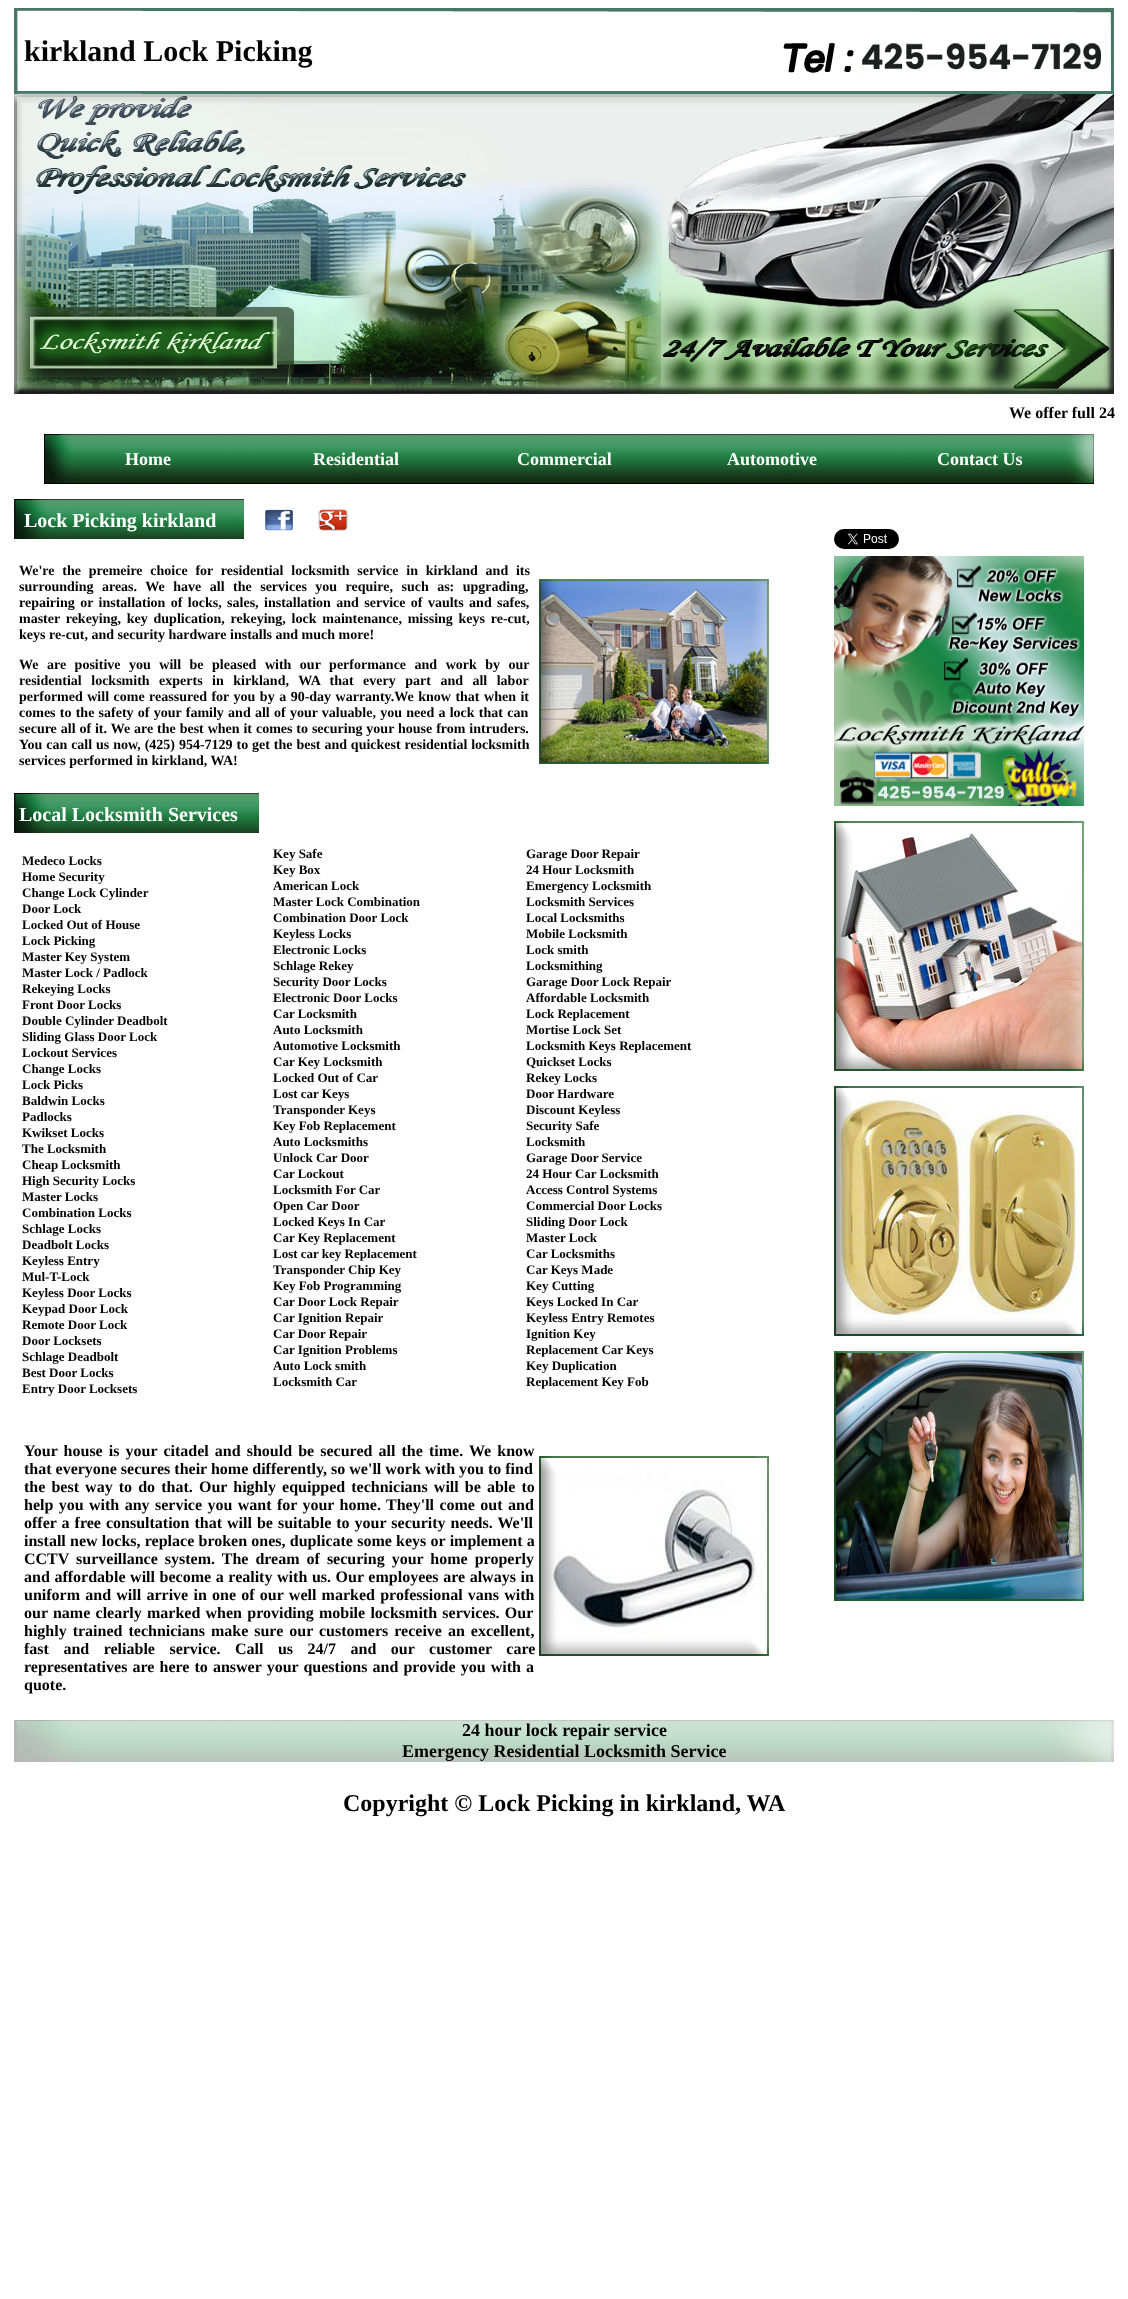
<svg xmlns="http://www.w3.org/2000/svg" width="1128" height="2299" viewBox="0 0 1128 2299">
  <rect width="100%" height="100%" fill="#ffffff"/>
  <image x="14" y="8" width="1100" height="86" href="img1.png"/>
  <text x="24" y="61" font-family="Liberation Serif" font-size="30" font-weight="bold" fill="#020202">kirkland Lock Picking</text>
  <image x="14" y="94" width="1100" height="300" href="img2.png"/>
  <text x="1009" y="418" font-family="Liberation Serif" font-size="16" font-weight="bold" fill="#020202">We offer full 24</text>
  <image x="44" y="434" width="1050" height="50" href="img3.png"/>
  <text x="125" y="465" font-family="Liberation Serif" font-size="18" font-weight="bold" fill="#ffffff">Home</text>
  <text x="313" y="465" font-family="Liberation Serif" font-size="18" font-weight="bold" fill="#ffffff">Residential</text>
  <text x="517" y="465" font-family="Liberation Serif" font-size="18" font-weight="bold" fill="#ffffff">Commercial</text>
  <text x="727" y="465" font-family="Liberation Serif" font-size="18" font-weight="bold" fill="#ffffff">Automotive</text>
  <text x="937" y="465" font-family="Liberation Serif" font-size="18" font-weight="bold" fill="#ffffff">Contact Us</text>
  <image x="14" y="499" width="230" height="40" href="img4.png"/>
  <text x="24" y="527" font-family="Liberation Serif" font-size="20" font-weight="bold" fill="#ffffff">Lock Picking kirkland</text>
  <image x="265" y="509" width="29" height="22" href="img5.png"/>
  <image x="318" y="509" width="30" height="22" href="img6.png"/>
  <text x="19" y="575" word-spacing="4.25" font-family="Liberation Serif" font-size="14" font-weight="bold" fill="#020202">We're the premeire choice for residential locksmith service in kirkland and its</text>
  <text x="19" y="591" word-spacing="5" font-family="Liberation Serif" font-size="14" font-weight="bold" fill="#020202">surrounding areas. We have all the services you require, such as: upgrading,</text>
  <text x="19" y="607" word-spacing="1.9" font-family="Liberation Serif" font-size="14" font-weight="bold" fill="#020202">repairing or installation of locks, sales, installation and service of vaults and safes,</text>
  <text x="19" y="623" word-spacing="2.25" font-family="Liberation Serif" font-size="14" font-weight="bold" fill="#020202">master rekeying, key duplication, rekeying, lock maintenance, missing keys re-cut,</text>
  <text x="19" y="639" font-family="Liberation Serif" font-size="14" font-weight="bold" fill="#020202">keys re-cut, and security hardware installs and much more!</text>
  <text x="19" y="669" word-spacing="5" font-family="Liberation Serif" font-size="14" font-weight="bold" fill="#020202">We are positive you will be pleased with our performance and work by our</text>
  <text x="19" y="685" word-spacing="6" font-family="Liberation Serif" font-size="14" font-weight="bold" fill="#020202">residential locksmith experts in kirkland, WA that every part and all labor</text>
  <text x="19" y="701" word-spacing="1" font-family="Liberation Serif" font-size="14" font-weight="bold" fill="#020202">performed will come reassured for you by a 90-day warranty.We know that when it</text>
  <text x="19" y="717" word-spacing="0.75" font-family="Liberation Serif" font-size="14" font-weight="bold" fill="#020202">comes to the safety of your family and all of your valuable, you need a lock that can</text>
  <text x="19" y="733" word-spacing="0.4" font-family="Liberation Serif" font-size="14" font-weight="bold" fill="#020202">secure all of it. We are the best when it comes to securing your house from intruders.</text>
  <text x="19" y="749" word-spacing="0.4" font-family="Liberation Serif" font-size="14" font-weight="bold" fill="#020202">You can call us now, (425) 954-7129 to get the best and quickest residential locksmith</text>
  <text x="19" y="765" font-family="Liberation Serif" font-size="14" font-weight="bold" fill="#020202">services performed in kirkland, WA!</text>
  <image x="539" y="579" width="230" height="185" href="img7.png"/>
  <image x="14" y="793" width="245" height="40" href="img8.png"/>
  <text x="19" y="821" font-family="Liberation Serif" font-size="20" font-weight="bold" fill="#ffffff">Local Locksmith Services</text>
  <text x="22" y="865" font-family="Liberation Serif" font-size="13" font-weight="bold" fill="#020202">Medeco Locks</text>
  <text x="22" y="881" font-family="Liberation Serif" font-size="13" font-weight="bold" fill="#020202">Home Security</text>
  <text x="22" y="897" font-family="Liberation Serif" font-size="13" font-weight="bold" fill="#020202">Change Lock Cylinder</text>
  <text x="22" y="913" font-family="Liberation Serif" font-size="13" font-weight="bold" fill="#020202">Door Lock</text>
  <text x="22" y="929" font-family="Liberation Serif" font-size="13" font-weight="bold" fill="#020202">Locked Out of House</text>
  <text x="22" y="945" font-family="Liberation Serif" font-size="13" font-weight="bold" fill="#020202">Lock Picking</text>
  <text x="22" y="961" font-family="Liberation Serif" font-size="13" font-weight="bold" fill="#020202">Master Key System</text>
  <text x="22" y="977" font-family="Liberation Serif" font-size="13" font-weight="bold" fill="#020202">Master Lock / Padlock</text>
  <text x="22" y="993" font-family="Liberation Serif" font-size="13" font-weight="bold" fill="#020202">Rekeying Locks</text>
  <text x="22" y="1009" font-family="Liberation Serif" font-size="13" font-weight="bold" fill="#020202">Front Door Locks</text>
  <text x="22" y="1025" font-family="Liberation Serif" font-size="13" font-weight="bold" fill="#020202">Double Cylinder Deadbolt</text>
  <text x="22" y="1041" font-family="Liberation Serif" font-size="13" font-weight="bold" fill="#020202">Sliding Glass Door Lock</text>
  <text x="22" y="1057" font-family="Liberation Serif" font-size="13" font-weight="bold" fill="#020202">Lockout Services</text>
  <text x="22" y="1073" font-family="Liberation Serif" font-size="13" font-weight="bold" fill="#020202">Change Locks</text>
  <text x="22" y="1089" font-family="Liberation Serif" font-size="13" font-weight="bold" fill="#020202">Lock Picks</text>
  <text x="22" y="1105" font-family="Liberation Serif" font-size="13" font-weight="bold" fill="#020202">Baldwin Locks</text>
  <text x="22" y="1121" font-family="Liberation Serif" font-size="13" font-weight="bold" fill="#020202">Padlocks</text>
  <text x="22" y="1137" font-family="Liberation Serif" font-size="13" font-weight="bold" fill="#020202">Kwikset Locks</text>
  <text x="22" y="1153" font-family="Liberation Serif" font-size="13" font-weight="bold" fill="#020202">The Locksmith</text>
  <text x="22" y="1169" font-family="Liberation Serif" font-size="13" font-weight="bold" fill="#020202">Cheap Locksmith</text>
  <text x="22" y="1185" font-family="Liberation Serif" font-size="13" font-weight="bold" fill="#020202">High Security Locks</text>
  <text x="22" y="1201" font-family="Liberation Serif" font-size="13" font-weight="bold" fill="#020202">Master Locks</text>
  <text x="22" y="1217" font-family="Liberation Serif" font-size="13" font-weight="bold" fill="#020202">Combination Locks</text>
  <text x="22" y="1233" font-family="Liberation Serif" font-size="13" font-weight="bold" fill="#020202">Schlage Locks</text>
  <text x="22" y="1249" font-family="Liberation Serif" font-size="13" font-weight="bold" fill="#020202">Deadbolt Locks</text>
  <text x="22" y="1265" font-family="Liberation Serif" font-size="13" font-weight="bold" fill="#020202">Keyless Entry</text>
  <text x="22" y="1281" font-family="Liberation Serif" font-size="13" font-weight="bold" fill="#020202">Mul-T-Lock</text>
  <text x="22" y="1297" font-family="Liberation Serif" font-size="13" font-weight="bold" fill="#020202">Keyless Door Locks</text>
  <text x="22" y="1313" font-family="Liberation Serif" font-size="13" font-weight="bold" fill="#020202">Keypad Door Lock</text>
  <text x="22" y="1329" font-family="Liberation Serif" font-size="13" font-weight="bold" fill="#020202">Remote Door Lock</text>
  <text x="22" y="1345" font-family="Liberation Serif" font-size="13" font-weight="bold" fill="#020202">Door Locksets</text>
  <text x="22" y="1361" font-family="Liberation Serif" font-size="13" font-weight="bold" fill="#020202">Schlage Deadbolt</text>
  <text x="22" y="1377" font-family="Liberation Serif" font-size="13" font-weight="bold" fill="#020202">Best Door Locks</text>
  <text x="22" y="1393" font-family="Liberation Serif" font-size="13" font-weight="bold" fill="#020202">Entry Door Locksets</text>
  <text x="273" y="858" font-family="Liberation Serif" font-size="13" font-weight="bold" fill="#020202">Key Safe</text>
  <text x="273" y="874" font-family="Liberation Serif" font-size="13" font-weight="bold" fill="#020202">Key Box</text>
  <text x="273" y="890" font-family="Liberation Serif" font-size="13" font-weight="bold" fill="#020202">American Lock</text>
  <text x="273" y="906" font-family="Liberation Serif" font-size="13" font-weight="bold" fill="#020202">Master Lock Combination</text>
  <text x="273" y="922" font-family="Liberation Serif" font-size="13" font-weight="bold" fill="#020202">Combination Door Lock</text>
  <text x="273" y="938" font-family="Liberation Serif" font-size="13" font-weight="bold" fill="#020202">Keyless Locks</text>
  <text x="273" y="954" font-family="Liberation Serif" font-size="13" font-weight="bold" fill="#020202">Electronic Locks</text>
  <text x="273" y="970" font-family="Liberation Serif" font-size="13" font-weight="bold" fill="#020202">Schlage Rekey</text>
  <text x="273" y="986" font-family="Liberation Serif" font-size="13" font-weight="bold" fill="#020202">Security Door Locks</text>
  <text x="273" y="1002" font-family="Liberation Serif" font-size="13" font-weight="bold" fill="#020202">Electronic Door Locks</text>
  <text x="273" y="1018" font-family="Liberation Serif" font-size="13" font-weight="bold" fill="#020202">Car Locksmith</text>
  <text x="273" y="1034" font-family="Liberation Serif" font-size="13" font-weight="bold" fill="#020202">Auto Locksmith</text>
  <text x="273" y="1050" font-family="Liberation Serif" font-size="13" font-weight="bold" fill="#020202">Automotive Locksmith</text>
  <text x="273" y="1066" font-family="Liberation Serif" font-size="13" font-weight="bold" fill="#020202">Car Key Locksmith</text>
  <text x="273" y="1082" font-family="Liberation Serif" font-size="13" font-weight="bold" fill="#020202">Locked Out of Car</text>
  <text x="273" y="1098" font-family="Liberation Serif" font-size="13" font-weight="bold" fill="#020202">Lost car Keys</text>
  <text x="273" y="1114" font-family="Liberation Serif" font-size="13" font-weight="bold" fill="#020202">Transponder Keys</text>
  <text x="273" y="1130" font-family="Liberation Serif" font-size="13" font-weight="bold" fill="#020202">Key Fob Replacement</text>
  <text x="273" y="1146" font-family="Liberation Serif" font-size="13" font-weight="bold" fill="#020202">Auto Locksmiths</text>
  <text x="273" y="1162" font-family="Liberation Serif" font-size="13" font-weight="bold" fill="#020202">Unlock Car Door</text>
  <text x="273" y="1178" font-family="Liberation Serif" font-size="13" font-weight="bold" fill="#020202">Car Lockout</text>
  <text x="273" y="1194" font-family="Liberation Serif" font-size="13" font-weight="bold" fill="#020202">Locksmith For Car</text>
  <text x="273" y="1210" font-family="Liberation Serif" font-size="13" font-weight="bold" fill="#020202">Open Car Door</text>
  <text x="273" y="1226" font-family="Liberation Serif" font-size="13" font-weight="bold" fill="#020202">Locked Keys In Car</text>
  <text x="273" y="1242" font-family="Liberation Serif" font-size="13" font-weight="bold" fill="#020202">Car Key Replacement</text>
  <text x="273" y="1258" font-family="Liberation Serif" font-size="13" font-weight="bold" fill="#020202">Lost car key Replacement</text>
  <text x="273" y="1274" font-family="Liberation Serif" font-size="13" font-weight="bold" fill="#020202">Transponder Chip Key</text>
  <text x="273" y="1290" font-family="Liberation Serif" font-size="13" font-weight="bold" fill="#020202">Key Fob Programming</text>
  <text x="273" y="1306" font-family="Liberation Serif" font-size="13" font-weight="bold" fill="#020202">Car Door Lock Repair</text>
  <text x="273" y="1322" font-family="Liberation Serif" font-size="13" font-weight="bold" fill="#020202">Car Ignition Repair</text>
  <text x="273" y="1338" font-family="Liberation Serif" font-size="13" font-weight="bold" fill="#020202">Car Door Repair</text>
  <text x="273" y="1354" font-family="Liberation Serif" font-size="13" font-weight="bold" fill="#020202">Car Ignition Problems</text>
  <text x="273" y="1370" font-family="Liberation Serif" font-size="13" font-weight="bold" fill="#020202">Auto Lock smith</text>
  <text x="273" y="1386" font-family="Liberation Serif" font-size="13" font-weight="bold" fill="#020202">Locksmith Car</text>
  <text x="526" y="858" font-family="Liberation Serif" font-size="13" font-weight="bold" fill="#020202">Garage Door Repair</text>
  <text x="526" y="874" font-family="Liberation Serif" font-size="13" font-weight="bold" fill="#020202">24 Hour Locksmith</text>
  <text x="526" y="890" font-family="Liberation Serif" font-size="13" font-weight="bold" fill="#020202">Emergency Locksmith</text>
  <text x="526" y="906" font-family="Liberation Serif" font-size="13" font-weight="bold" fill="#020202">Locksmith Services</text>
  <text x="526" y="922" font-family="Liberation Serif" font-size="13" font-weight="bold" fill="#020202">Local Locksmiths</text>
  <text x="526" y="938" font-family="Liberation Serif" font-size="13" font-weight="bold" fill="#020202">Mobile Locksmith</text>
  <text x="526" y="954" font-family="Liberation Serif" font-size="13" font-weight="bold" fill="#020202">Lock smith</text>
  <text x="526" y="970" font-family="Liberation Serif" font-size="13" font-weight="bold" fill="#020202">Locksmithing</text>
  <text x="526" y="986" font-family="Liberation Serif" font-size="13" font-weight="bold" fill="#020202">Garage Door Lock Repair</text>
  <text x="526" y="1002" font-family="Liberation Serif" font-size="13" font-weight="bold" fill="#020202">Affordable Locksmith</text>
  <text x="526" y="1018" font-family="Liberation Serif" font-size="13" font-weight="bold" fill="#020202">Lock Replacement</text>
  <text x="526" y="1034" font-family="Liberation Serif" font-size="13" font-weight="bold" fill="#020202">Mortise Lock Set</text>
  <text x="526" y="1050" font-family="Liberation Serif" font-size="13" font-weight="bold" fill="#020202">Locksmith Keys Replacement</text>
  <text x="526" y="1066" font-family="Liberation Serif" font-size="13" font-weight="bold" fill="#020202">Quickset Locks</text>
  <text x="526" y="1082" font-family="Liberation Serif" font-size="13" font-weight="bold" fill="#020202">Rekey Locks</text>
  <text x="526" y="1098" font-family="Liberation Serif" font-size="13" font-weight="bold" fill="#020202">Door Hardware</text>
  <text x="526" y="1114" font-family="Liberation Serif" font-size="13" font-weight="bold" fill="#020202">Discount Keyless</text>
  <text x="526" y="1130" font-family="Liberation Serif" font-size="13" font-weight="bold" fill="#020202">Security Safe</text>
  <text x="526" y="1146" font-family="Liberation Serif" font-size="13" font-weight="bold" fill="#020202">Locksmith</text>
  <text x="526" y="1162" font-family="Liberation Serif" font-size="13" font-weight="bold" fill="#020202">Garage Door Service</text>
  <text x="526" y="1178" font-family="Liberation Serif" font-size="13" font-weight="bold" fill="#020202">24 Hour Car Locksmith</text>
  <text x="526" y="1194" font-family="Liberation Serif" font-size="13" font-weight="bold" fill="#020202">Access Control Systems</text>
  <text x="526" y="1210" font-family="Liberation Serif" font-size="13" font-weight="bold" fill="#020202">Commercial Door Locks</text>
  <text x="526" y="1226" font-family="Liberation Serif" font-size="13" font-weight="bold" fill="#020202">Sliding Door Lock</text>
  <text x="526" y="1242" font-family="Liberation Serif" font-size="13" font-weight="bold" fill="#020202">Master Lock</text>
  <text x="526" y="1258" font-family="Liberation Serif" font-size="13" font-weight="bold" fill="#020202">Car Locksmiths</text>
  <text x="526" y="1274" font-family="Liberation Serif" font-size="13" font-weight="bold" fill="#020202">Car Keys Made</text>
  <text x="526" y="1290" font-family="Liberation Serif" font-size="13" font-weight="bold" fill="#020202">Key Cutting</text>
  <text x="526" y="1306" font-family="Liberation Serif" font-size="13" font-weight="bold" fill="#020202">Keys Locked In Car</text>
  <text x="526" y="1322" font-family="Liberation Serif" font-size="13" font-weight="bold" fill="#020202">Keyless Entry Remotes</text>
  <text x="526" y="1338" font-family="Liberation Serif" font-size="13" font-weight="bold" fill="#020202">Ignition Key</text>
  <text x="526" y="1354" font-family="Liberation Serif" font-size="13" font-weight="bold" fill="#020202">Replacement Car Keys</text>
  <text x="526" y="1370" font-family="Liberation Serif" font-size="13" font-weight="bold" fill="#020202">Key Duplication</text>
  <text x="526" y="1386" font-family="Liberation Serif" font-size="13" font-weight="bold" fill="#020202">Replacement Key Fob</text>
  <text x="24" y="1456" word-spacing="2.1" font-family="Liberation Serif" font-size="16" font-weight="bold" fill="#020202">Your house is your citadel and should be secured all the time. We know</text>
  <text x="24" y="1474" font-family="Liberation Serif" font-size="16" font-weight="bold" fill="#020202">that everyone secures their home differently, so we'll work with you to find</text>
  <text x="24" y="1492" word-spacing="2.1" font-family="Liberation Serif" font-size="16" font-weight="bold" fill="#020202">the best way to do that.</text>
  <text x="199" y="1492" word-spacing="2.1" font-family="Liberation Serif" font-size="16" font-weight="bold" fill="#020202">Our highly equipped technicians will be able to</text>
  <text x="24" y="1510" word-spacing="1.4" font-family="Liberation Serif" font-size="16" font-weight="bold" fill="#020202">help you with any service you want for your home. They'll come out and</text>
  <text x="24" y="1528" word-spacing="1" font-family="Liberation Serif" font-size="16" font-weight="bold" fill="#020202">offer a free consultation that will be suitable to your security needs. We'll</text>
  <text x="24" y="1546" word-spacing="0.25" font-family="Liberation Serif" font-size="16" font-weight="bold" fill="#020202">install new locks, replace broken ones, duplicate some keys or implement a</text>
  <text x="24" y="1564" word-spacing="3" font-family="Liberation Serif" font-size="16" font-weight="bold" fill="#020202">CCTV surveillance system. The dream of securing your home properly</text>
  <text x="24" y="1582" word-spacing="0.6" font-family="Liberation Serif" font-size="16" font-weight="bold" fill="#020202">and affordable will become a reality with us. Our employees are always in</text>
  <text x="24" y="1600" word-spacing="1.25" font-family="Liberation Serif" font-size="16" font-weight="bold" fill="#020202">uniform and will arrive in one of our well marked professional vans with</text>
  <text x="24" y="1618" word-spacing="1.25" font-family="Liberation Serif" font-size="16" font-weight="bold" fill="#020202">our name clearly marked when providing mobile locksmith services. Our</text>
  <text x="24" y="1636" word-spacing="2" font-family="Liberation Serif" font-size="16" font-weight="bold" fill="#020202">highly trained technicians make sure our customers receive an excellent,</text>
  <text x="24" y="1654" word-spacing="10.5" font-family="Liberation Serif" font-size="16" font-weight="bold" fill="#020202">fast and reliable service. Call us 24/7 and our customer care</text>
  <text x="24" y="1672" word-spacing="1.1" font-family="Liberation Serif" font-size="16" font-weight="bold" fill="#020202">representatives are here to answer your questions and provide you with a</text>
  <text x="24" y="1690" font-family="Liberation Serif" font-size="16" font-weight="bold" fill="#020202">quote.</text>
  <image x="539" y="1456" width="230" height="200" href="img9.png"/>
  <image x="834" y="529" width="65" height="20" href="img10.png"/>
  <image x="834" y="556" width="250" height="250" href="img11.png"/>
  <image x="834" y="821" width="250" height="250" href="img12.png"/>
  <image x="834" y="1086" width="250" height="250" href="img13.png"/>
  <image x="834" y="1351" width="250" height="250" href="img14.png"/>
  <image x="14" y="1720" width="1100" height="42" href="img15.png"/>
  <text x="462" y="1736" font-family="Liberation Serif" font-size="18" font-weight="bold" fill="#020202">24 hour lock repair service</text>
  <text x="402" y="1757" font-family="Liberation Serif" font-size="18" font-weight="bold" fill="#020202">Emergency Residential Locksmith Service</text>
  <text x="343" y="1811" font-family="Liberation Serif" font-size="24" font-weight="bold" fill="#020202">Copyright © Lock Picking in kirkland, WA</text>
</svg>
